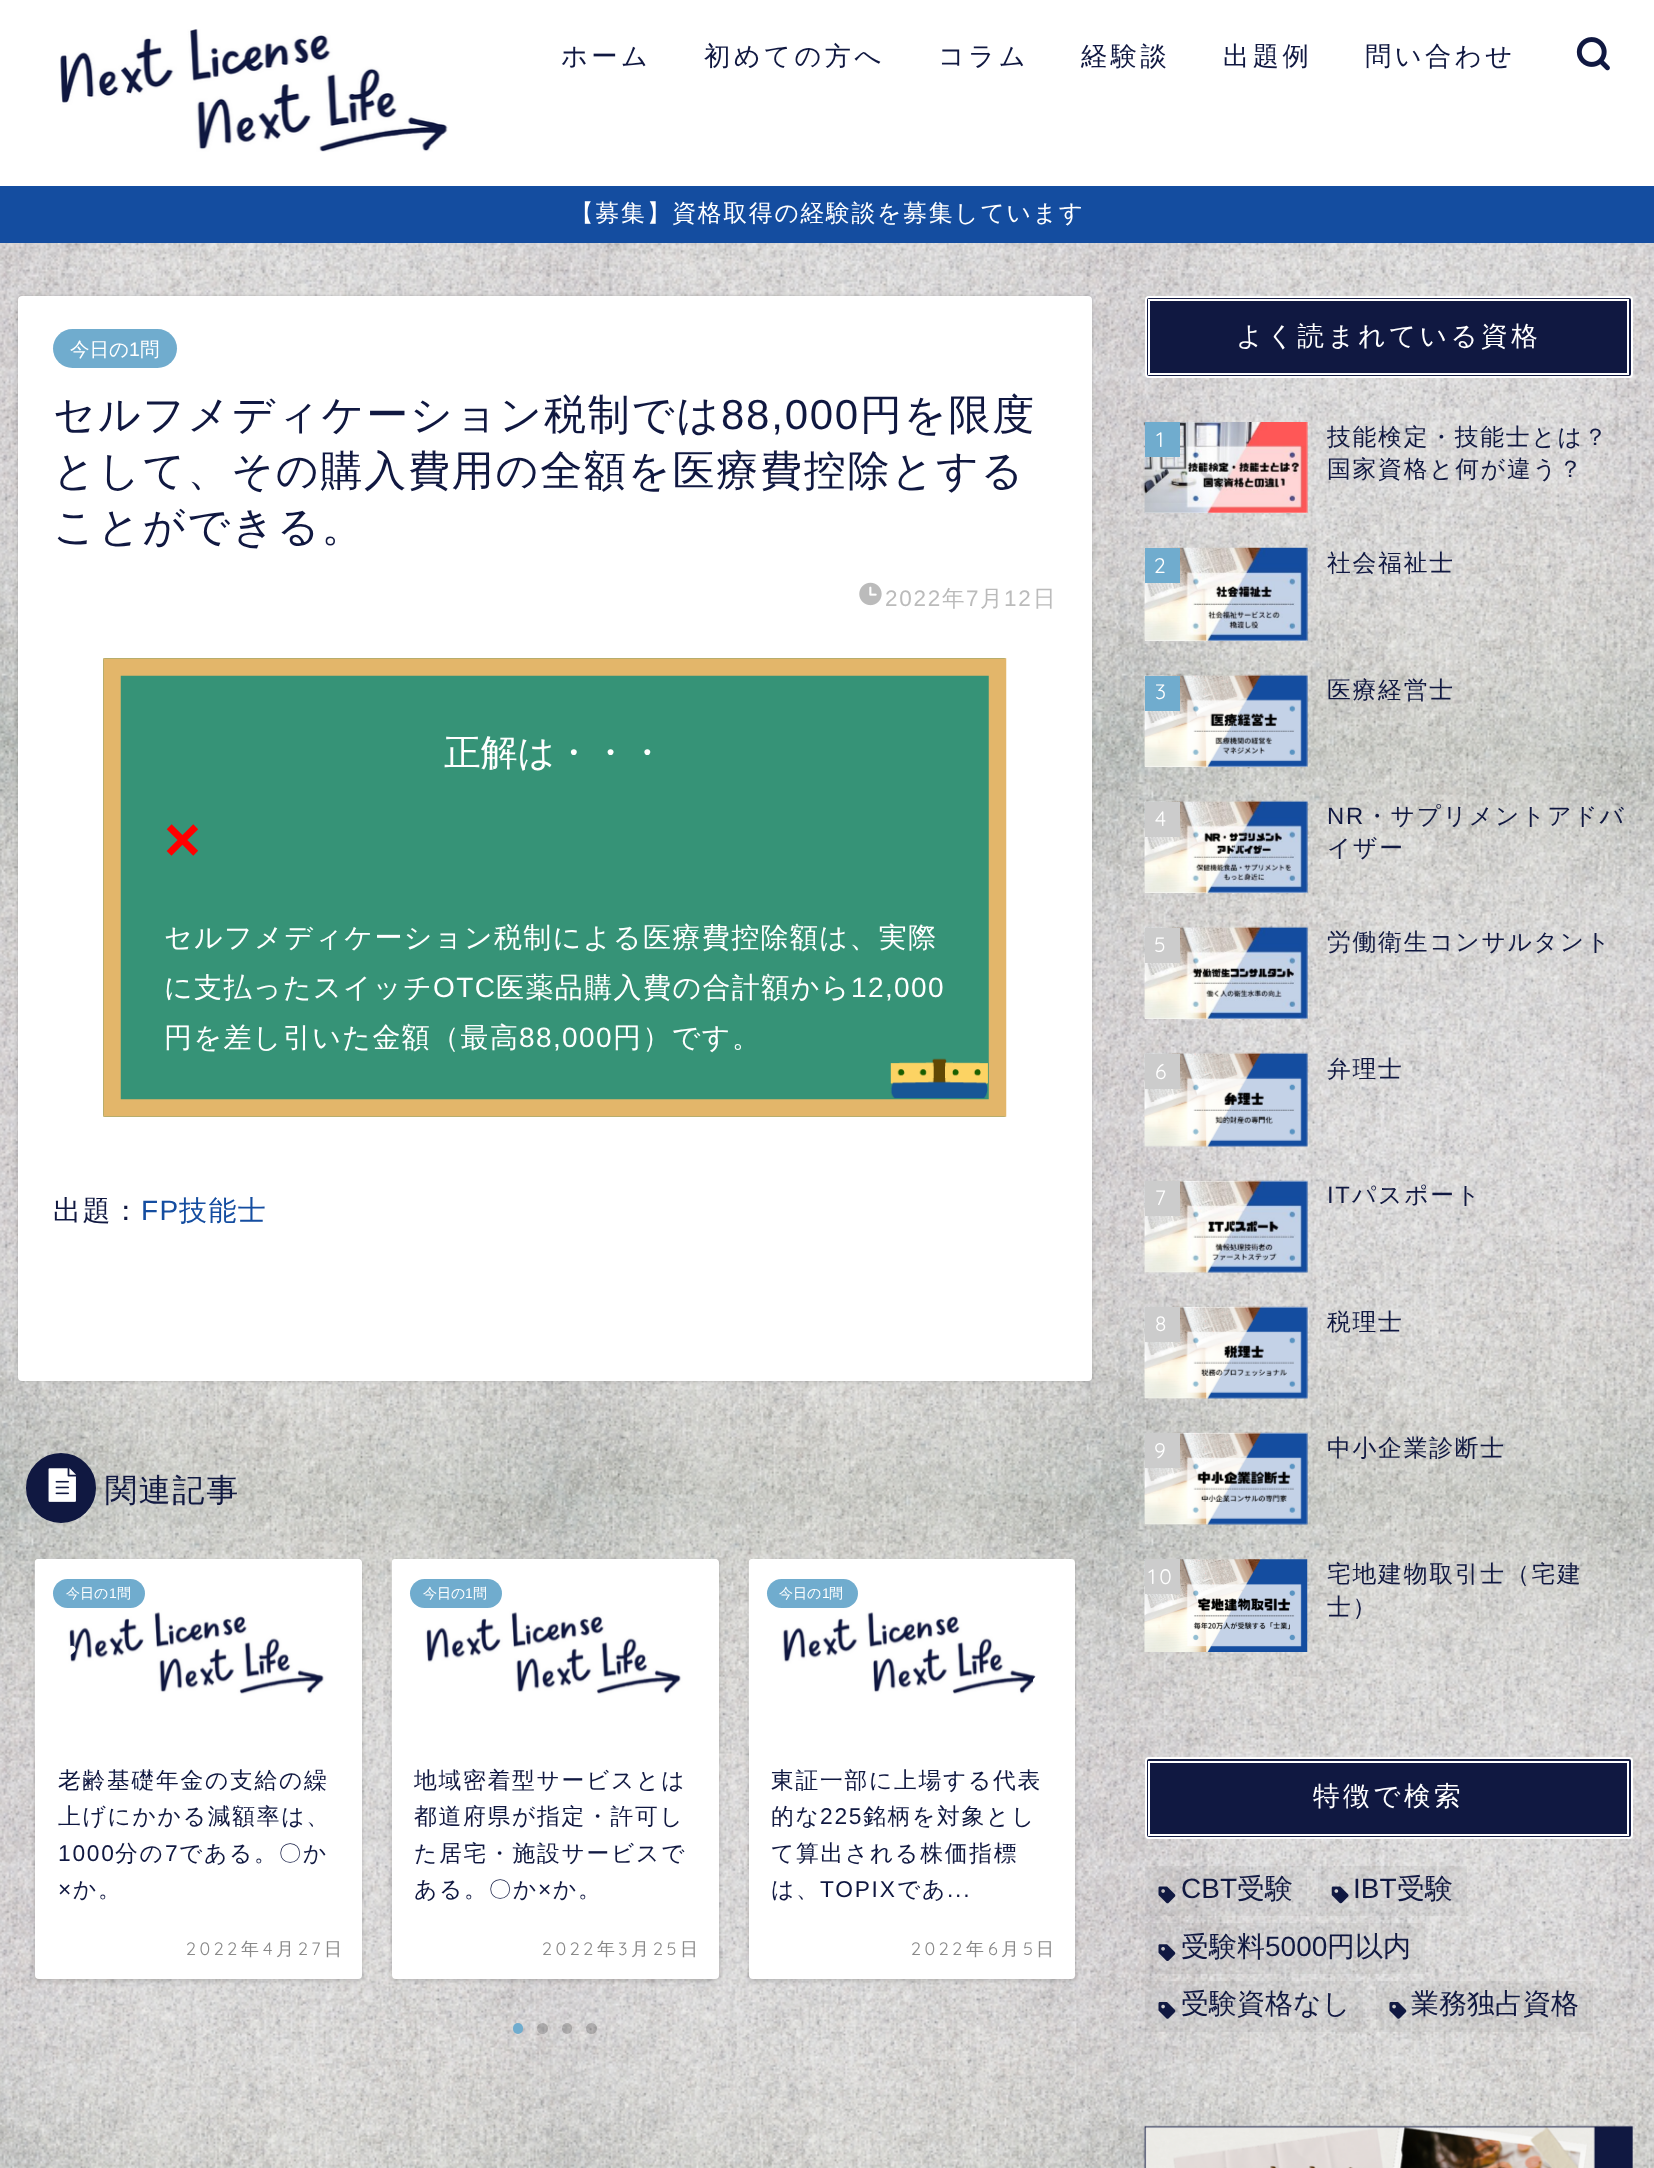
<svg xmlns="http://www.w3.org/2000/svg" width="1654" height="2168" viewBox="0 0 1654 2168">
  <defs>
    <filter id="blur1" x="-50%" y="-200%" width="200%" height="500%"><feGaussianBlur stdDeviation="2"/></filter>
    <filter id="blur2" x="-50%" y="-200%" width="200%" height="500%"><feGaussianBlur stdDeviation="2.5"/></filter>
  </defs>
  <rect width="100%" height="100%" fill="#ffffff"/>
  <image x="0" y="243" width="1654" height="1925" href="img1.png"/>
  <image x="60" y="29" width="388" height="123" href="img2.png"/>
  <text x="561" y="65" font-family="WenQuanYi Zen Hei" font-size="26.25" font-weight="500" letter-spacing="3.5" fill="#101841">ホーム</text>
  <text x="704" y="65" font-family="WenQuanYi Zen Hei" font-size="26.25" font-weight="500" letter-spacing="3.5" fill="#101841">初めての方へ</text>
  <text x="938" y="65" font-family="WenQuanYi Zen Hei" font-size="26.25" font-weight="500" letter-spacing="3.5" fill="#101841">コラム</text>
  <text x="1081" y="65" font-family="WenQuanYi Zen Hei" font-size="26.25" font-weight="500" letter-spacing="3.5" fill="#101841">経験談</text>
  <text x="1223" y="65" font-family="WenQuanYi Zen Hei" font-size="26.25" font-weight="500" letter-spacing="3.5" fill="#101841">出題例</text>
  <text x="1365" y="65" font-family="WenQuanYi Zen Hei" font-size="26.25" font-weight="500" letter-spacing="3.5" fill="#101841">問い合わせ</text>
  <image x="1576" y="37" width="34" height="34" href="img3.png"/>
  <rect x="0" y="186" width="1654" height="57" fill="#144da0"/>
  <text x="570" y="221" font-family="WenQuanYi Zen Hei" font-size="23.8" font-weight="500" letter-spacing="1.75" fill="#ffffff">【募集】資格取得の経験談を募集しています</text>
  <rect x="18" y="296" width="1074" height="1085" rx="4" fill="#000000" fill-opacity="0.18" filter="url(#blur1)"/>
  <rect x="18" y="296" width="1074" height="1085" rx="4" fill="#ffffff"/>
  <rect x="53" y="329" width="124" height="39" rx="19.5" fill="#70acce"/>
  <text x="70" y="356" font-family="WenQuanYi Zen Hei" font-size="19.5" font-weight="500" fill="#ffffff">今日の</text>
  <text x="129" y="356" font-family="Liberation Sans" font-size="19.5" fill="#ffffff">1</text>
  <text x="140" y="356" font-family="WenQuanYi Zen Hei" font-size="19.5" font-weight="500" fill="#ffffff">問</text>
  <text x="53" y="429" font-family="WenQuanYi Zen Hei" font-size="42" font-weight="500" letter-spacing="1.75" fill="#101841">セルフメディケーション税制では</text>
  <text x="721" y="429" font-family="Liberation Sans" font-size="42" letter-spacing="1.75" fill="#101841">88,000</text>
  <text x="860" y="429" font-family="WenQuanYi Zen Hei" font-size="42" font-weight="500" letter-spacing="1.75" fill="#101841">円を限度</text>
  <text x="53" y="485" font-family="WenQuanYi Zen Hei" font-size="42" font-weight="500" letter-spacing="1.75" fill="#101841">として、その購入費用の全額を医療費控除とする</text>
  <text x="53" y="541" font-family="WenQuanYi Zen Hei" font-size="42" font-weight="500" letter-spacing="1.75" fill="#101841">ことができる。</text>
  <image x="859" y="582" width="23" height="24" href="img4.png"/>
  <text x="885" y="606" font-family="Liberation Sans" font-size="22.5" letter-spacing="1.75" fill="#bbbbbb">2022</text>
  <text x="942" y="606" font-family="WenQuanYi Zen Hei" font-size="22.5" font-weight="500" letter-spacing="1.75" fill="#bbbbbb">年</text>
  <text x="966" y="606" font-family="Liberation Sans" font-size="22.5" letter-spacing="1.75" fill="#bbbbbb">7</text>
  <text x="980" y="606" font-family="WenQuanYi Zen Hei" font-size="22.5" font-weight="500" letter-spacing="1.75" fill="#bbbbbb">月</text>
  <text x="1004" y="606" font-family="Liberation Sans" font-size="22.5" letter-spacing="1.75" fill="#bbbbbb">12</text>
  <text x="1033" y="606" font-family="WenQuanYi Zen Hei" font-size="22.5" font-weight="500" letter-spacing="1.75" fill="#bbbbbb">日</text>
  <rect x="103" y="658" width="903" height="459" rx="2" fill="#369377"/>
  <path d="M112 667H997.5V1108H112Z" fill="none" stroke="#e3b66a" stroke-width="17.5"/>
  <text x="444" y="765" font-family="WenQuanYi Zen Hei" font-size="36.75" font-weight="500" fill="#ffffff">正解は・・・</text>
  <text x="164" y="861" font-family="Liberation Sans" font-size="63" font-weight="bold" letter-spacing="1.4" fill="#ff0000">×</text>
  <text x="164" y="947" font-family="WenQuanYi Zen Hei" font-size="28" font-weight="500" letter-spacing="1.4" fill="#ffffff">セルフメディケーション税制による医療費控除額は、実際</text>
  <text x="164" y="997" font-family="WenQuanYi Zen Hei" font-size="28" font-weight="500" letter-spacing="1.4" fill="#ffffff">に支払ったスイッチ</text>
  <text x="433" y="997" font-family="Liberation Sans" font-size="28" letter-spacing="1.4" fill="#ffffff">OTC</text>
  <text x="496" y="997" font-family="WenQuanYi Zen Hei" font-size="28" font-weight="500" letter-spacing="1.4" fill="#ffffff">医薬品購入費の合計額から</text>
  <text x="851" y="997" font-family="Liberation Sans" font-size="28" letter-spacing="1.4" fill="#ffffff">12,000</text>
  <text x="164" y="1047" font-family="WenQuanYi Zen Hei" font-size="28" font-weight="500" letter-spacing="1.4" fill="#ffffff">円を差し引いた金額（最高</text>
  <text x="519" y="1047" font-family="Liberation Sans" font-size="28" letter-spacing="1.4" fill="#ffffff">88,000</text>
  <text x="613" y="1047" font-family="WenQuanYi Zen Hei" font-size="28" font-weight="500" letter-spacing="1.4" fill="#ffffff">円）です。</text>
  <image x="890" y="1058" width="98" height="41" href="img5.png"/>
  <text x="53" y="1220" font-family="WenQuanYi Zen Hei" font-size="28" font-weight="500" letter-spacing="1.4" fill="#101841">出題：</text>
  <text x="141" y="1220" font-family="Liberation Sans" font-size="28" letter-spacing="1.4" fill="#144da0">FP</text>
  <text x="179" y="1220" font-family="WenQuanYi Zen Hei" font-size="28" font-weight="500" letter-spacing="1.4" fill="#144da0">技能士</text>
  <circle cx="61" cy="1488" r="34" fill="#101841" stroke="#101841" stroke-width="2"/>
  <image x="48" y="1468" width="28" height="34" href="img6.png"/>
  <text x="105" y="1501" font-family="WenQuanYi Zen Hei" font-size="32" font-weight="500" letter-spacing="1.75" fill="#101841">関連記事</text>
  <rect x="35" y="1561" width="327" height="420" rx="4" fill="#000000" fill-opacity="0.18" filter="url(#blur2)"/>
  <rect x="35" y="1559" width="327" height="420" rx="4" fill="#ffffff"/>
  <image x="34" y="1559" width="326" height="187" href="img7.png"/>
  <rect x="53" y="1579" width="92" height="29" rx="14.5" fill="#70acce"/>
  <text x="66" y="1598" font-family="WenQuanYi Zen Hei" font-size="14" font-weight="500" fill="#ffffff">今日の</text>
  <text x="109" y="1598" font-family="Liberation Sans" font-size="14" fill="#ffffff">1</text>
  <text x="117" y="1598" font-family="WenQuanYi Zen Hei" font-size="14" font-weight="500" fill="#ffffff">問</text>
  <text x="58" y="1788" font-family="WenQuanYi Zen Hei" font-size="22.75" font-weight="500" letter-spacing="1.75" fill="#101841">老齢基礎年金の支給の繰</text>
  <text x="58" y="1824" font-family="WenQuanYi Zen Hei" font-size="22.75" font-weight="500" letter-spacing="1.75" fill="#101841">上げにかかる減額率は、</text>
  <text x="58" y="1861" font-family="Liberation Sans" font-size="22.75" letter-spacing="1.75" fill="#101841">1000</text>
  <text x="115" y="1861" font-family="WenQuanYi Zen Hei" font-size="22.75" font-weight="500" letter-spacing="1.75" fill="#101841">分の</text>
  <text x="165" y="1861" font-family="Liberation Sans" font-size="22.75" letter-spacing="1.75" fill="#101841">7</text>
  <text x="179" y="1861" font-family="WenQuanYi Zen Hei" font-size="22.75" font-weight="500" letter-spacing="1.75" fill="#101841">である。〇か</text>
  <text x="58" y="1897" font-family="Liberation Sans" font-size="22.75" letter-spacing="1.75" fill="#101841">×</text>
  <text x="73" y="1897" font-family="WenQuanYi Zen Hei" font-size="22.75" font-weight="500" letter-spacing="1.75" fill="#101841">か。</text>
  <text x="186" y="1955" font-family="Quicksand" font-size="18" font-weight="300" letter-spacing="3.5" fill="#888888">2022</text>
  <text x="241" y="1955" font-family="WenQuanYi Zen Hei" font-size="18" font-weight="500" letter-spacing="3.5" fill="#888888">年</text>
  <text x="263" y="1955" font-family="Quicksand" font-size="18" font-weight="300" letter-spacing="3.5" fill="#888888">4</text>
  <text x="276" y="1955" font-family="WenQuanYi Zen Hei" font-size="18" font-weight="500" letter-spacing="3.5" fill="#888888">月</text>
  <text x="298" y="1955" font-family="Quicksand" font-size="18" font-weight="300" letter-spacing="3.5" fill="#888888">27</text>
  <text x="324" y="1955" font-family="WenQuanYi Zen Hei" font-size="18" font-weight="500" letter-spacing="3.5" fill="#888888">日</text>
  <rect x="392" y="1561" width="327" height="420" rx="4" fill="#000000" fill-opacity="0.18" filter="url(#blur2)"/>
  <rect x="392" y="1559" width="327" height="420" rx="4" fill="#ffffff"/>
  <image x="391" y="1559" width="326" height="187" href="img8.png"/>
  <rect x="410" y="1579" width="92" height="29" rx="14.5" fill="#70acce"/>
  <text x="423" y="1598" font-family="WenQuanYi Zen Hei" font-size="14" font-weight="500" fill="#ffffff">今日の</text>
  <text x="465" y="1598" font-family="Liberation Sans" font-size="14" fill="#ffffff">1</text>
  <text x="473" y="1598" font-family="WenQuanYi Zen Hei" font-size="14" font-weight="500" fill="#ffffff">問</text>
  <text x="414" y="1788" font-family="WenQuanYi Zen Hei" font-size="22.75" font-weight="500" letter-spacing="1.75" fill="#101841">地域密着型サービスとは</text>
  <text x="414" y="1824" font-family="WenQuanYi Zen Hei" font-size="22.75" font-weight="500" letter-spacing="1.75" fill="#101841">都道府県が指定・許可し</text>
  <text x="414" y="1861" font-family="WenQuanYi Zen Hei" font-size="22.75" font-weight="500" letter-spacing="1.75" fill="#101841">た居宅・施設サービスで</text>
  <text x="414" y="1897" font-family="WenQuanYi Zen Hei" font-size="22.75" font-weight="500" letter-spacing="1.75" fill="#101841">ある。〇か</text>
  <text x="538" y="1897" font-family="Liberation Sans" font-size="22.75" letter-spacing="1.75" fill="#101841">×</text>
  <text x="553" y="1897" font-family="WenQuanYi Zen Hei" font-size="22.75" font-weight="500" letter-spacing="1.75" fill="#101841">か。</text>
  <text x="542" y="1955" font-family="Quicksand" font-size="18" font-weight="300" letter-spacing="3.5" fill="#888888">2022</text>
  <text x="597" y="1955" font-family="WenQuanYi Zen Hei" font-size="18" font-weight="500" letter-spacing="3.5" fill="#888888">年</text>
  <text x="618" y="1955" font-family="Quicksand" font-size="18" font-weight="300" letter-spacing="3.5" fill="#888888">3</text>
  <text x="631" y="1955" font-family="WenQuanYi Zen Hei" font-size="18" font-weight="500" letter-spacing="3.5" fill="#888888">月</text>
  <text x="653" y="1955" font-family="Quicksand" font-size="18" font-weight="300" letter-spacing="3.5" fill="#888888">25</text>
  <text x="680" y="1955" font-family="WenQuanYi Zen Hei" font-size="18" font-weight="500" letter-spacing="3.5" fill="#888888">日</text>
  <rect x="749" y="1561" width="326" height="420" rx="4" fill="#000000" fill-opacity="0.18" filter="url(#blur2)"/>
  <rect x="749" y="1559" width="326" height="420" rx="4" fill="#ffffff"/>
  <image x="748" y="1559" width="289" height="187" href="img9.png"/>
  <rect x="767" y="1579" width="91" height="29" rx="14.5" fill="#70acce"/>
  <text x="779" y="1598" font-family="WenQuanYi Zen Hei" font-size="14" font-weight="500" fill="#ffffff">今日の</text>
  <text x="822" y="1598" font-family="Liberation Sans" font-size="14" fill="#ffffff">1</text>
  <text x="829" y="1598" font-family="WenQuanYi Zen Hei" font-size="14" font-weight="500" fill="#ffffff">問</text>
  <text x="771" y="1788" font-family="WenQuanYi Zen Hei" font-size="22.75" font-weight="500" letter-spacing="1.75" fill="#101841">東証一部に上場する代表</text>
  <text x="771" y="1824" font-family="WenQuanYi Zen Hei" font-size="22.75" font-weight="500" letter-spacing="1.75" fill="#101841">的な</text>
  <text x="820" y="1824" font-family="Liberation Sans" font-size="22.75" letter-spacing="1.75" fill="#101841">225</text>
  <text x="863" y="1824" font-family="WenQuanYi Zen Hei" font-size="22.75" font-weight="500" letter-spacing="1.75" fill="#101841">銘柄を対象とし</text>
  <text x="771" y="1861" font-family="WenQuanYi Zen Hei" font-size="22.75" font-weight="500" letter-spacing="1.75" fill="#101841">て算出される株価指標</text>
  <text x="771" y="1897" font-family="WenQuanYi Zen Hei" font-size="22.75" font-weight="500" letter-spacing="1.75" fill="#101841">は、</text>
  <text x="820" y="1897" font-family="Liberation Sans" font-size="22.75" letter-spacing="1.75" fill="#101841">TOPIX</text>
  <text x="897" y="1897" font-family="WenQuanYi Zen Hei" font-size="22.75" font-weight="500" letter-spacing="1.75" fill="#101841">であ</text>
  <text x="947" y="1897" font-family="Liberation Sans" font-size="22.75" letter-spacing="1.75" fill="#101841">...</text>
  <text x="911" y="1955" font-family="Quicksand" font-size="18" font-weight="300" letter-spacing="3.5" fill="#888888">2022</text>
  <text x="966" y="1955" font-family="WenQuanYi Zen Hei" font-size="18" font-weight="500" letter-spacing="3.5" fill="#888888">年</text>
  <text x="988" y="1955" font-family="Quicksand" font-size="18" font-weight="300" letter-spacing="3.5" fill="#888888">6</text>
  <text x="1001" y="1955" font-family="WenQuanYi Zen Hei" font-size="18" font-weight="500" letter-spacing="3.5" fill="#888888">月</text>
  <text x="1023" y="1955" font-family="Quicksand" font-size="18" font-weight="300" letter-spacing="3.5" fill="#888888">5</text>
  <text x="1036" y="1955" font-family="WenQuanYi Zen Hei" font-size="18" font-weight="500" letter-spacing="3.5" fill="#888888">日</text>
  <image x="70" y="1645" width="6" height="11" href="img10.png"/>
  <image x="1032" y="1676" width="5" height="7" href="img11.png"/>
  <rect x="513" y="2023" width="10" height="11" rx="5" fill="#70acce"/>
  <circle cx="542.5" cy="2028.5" r="5.5" fill="#000000" fill-opacity="0.2"/>
  <rect x="562" y="2023" width="10" height="11" rx="5" fill="#000000" fill-opacity="0.2"/>
  <circle cx="591.5" cy="2028.5" r="5.5" fill="#000000" fill-opacity="0.2"/>
  <rect x="1146" y="297" width="486" height="80" rx="3" fill="#101841" stroke="#ffffff" stroke-width="2"/>
  <rect x="1149" y="300" width="479" height="74" fill="none" stroke="#ffffff" stroke-width="2"/>
  <text x="1236" y="345" font-family="WenQuanYi Zen Hei" font-size="26.6" font-weight="500" letter-spacing="3.5" fill="#ffffff">よく読まれている資格</text>
  <rect x="1145" y="422" width="162" height="91" fill="#ffffff"/>
  <image x="1143" y="422" width="165" height="91" href="img12.png"/>
  <rect x="1145" y="422" width="35" height="35" fill="#70acce"/>
  <text x="1156" y="447" font-family="Quicksand" font-size="21" font-weight="300" letter-spacing="3.5" fill="#ffffff">1</text>
  <text x="1327" y="445" font-family="WenQuanYi Zen Hei" font-size="23.8" font-weight="500" letter-spacing="1.75" fill="#101841">技能検定・技能士とは？</text>
  <text x="1327" y="477" font-family="WenQuanYi Zen Hei" font-size="23.8" font-weight="500" letter-spacing="1.75" fill="#101841">国家資格と何が違う？</text>
  <rect x="1145" y="548" width="162" height="93" fill="#ffffff"/>
  <image x="1143" y="547" width="165" height="94" href="img13.png"/>
  <rect x="1145" y="548" width="35" height="35" fill="#70acce"/>
  <text x="1154" y="573" font-family="Quicksand" font-size="21" font-weight="300" letter-spacing="3.5" fill="#ffffff">2</text>
  <text x="1327" y="571" font-family="WenQuanYi Zen Hei" font-size="23.8" font-weight="500" letter-spacing="1.75" fill="#101841">社会福祉士</text>
  <rect x="1145" y="676" width="162" height="91" fill="#ffffff"/>
  <image x="1143" y="674" width="165" height="93" href="img14.png"/>
  <rect x="1145" y="676" width="35" height="35" fill="#70acce"/>
  <text x="1155" y="699" font-family="Quicksand" font-size="21" font-weight="300" letter-spacing="3.5" fill="#ffffff">3</text>
  <text x="1327" y="698" font-family="WenQuanYi Zen Hei" font-size="23.8" font-weight="500" letter-spacing="1.75" fill="#101841">医療経営士</text>
  <rect x="1145" y="802" width="162" height="91" fill="#ffffff"/>
  <image x="1144" y="800" width="164" height="93" href="img15.png"/>
  <rect x="1145" y="802" width="35" height="35" fill="#cccccc"/>
  <text x="1155" y="826" font-family="Quicksand" font-size="21" font-weight="300" letter-spacing="3.5" fill="#ffffff">4</text>
  <text x="1327" y="824" font-family="Liberation Sans" font-size="23.8" letter-spacing="1.75" fill="#101841">NR</text>
  <text x="1365" y="824" font-family="WenQuanYi Zen Hei" font-size="23.8" font-weight="500" letter-spacing="1.75" fill="#101841">・サプリメントアドバ</text>
  <text x="1327" y="856" font-family="WenQuanYi Zen Hei" font-size="23.8" font-weight="500" letter-spacing="1.75" fill="#101841">イザー</text>
  <rect x="1145" y="928" width="162" height="91" fill="#ffffff"/>
  <image x="1144" y="926" width="164" height="93" href="img16.png"/>
  <rect x="1145" y="928" width="35" height="35" fill="#cccccc"/>
  <text x="1154" y="952" font-family="Quicksand" font-size="21" font-weight="300" letter-spacing="3.5" fill="#ffffff">5</text>
  <text x="1327" y="950" font-family="WenQuanYi Zen Hei" font-size="23.8" font-weight="500" letter-spacing="1.75" fill="#101841">労働衛生コンサルタント</text>
  <image x="1144" y="1052" width="164" height="95" href="img17.png"/>
  <rect x="1145" y="1054" width="35" height="35" fill="#cccccc"/>
  <text x="1155" y="1079" font-family="Quicksand" font-size="21" font-weight="300" letter-spacing="3.5" fill="#ffffff">6</text>
  <text x="1327" y="1077" font-family="WenQuanYi Zen Hei" font-size="23.8" font-weight="500" letter-spacing="1.75" fill="#101841">弁理士</text>
  <rect x="1145" y="1181" width="162" height="91" fill="#ffffff"/>
  <image x="1143" y="1180" width="165" height="93" href="img18.png"/>
  <rect x="1145" y="1181" width="35" height="35" fill="#cccccc"/>
  <text x="1155" y="1205" font-family="Quicksand" font-size="21" font-weight="300" letter-spacing="3.5" fill="#ffffff">7</text>
  <text x="1327" y="1203" font-family="Liberation Sans" font-size="23.8" letter-spacing="1.75" fill="#101841">IT</text>
  <text x="1352" y="1203" font-family="WenQuanYi Zen Hei" font-size="23.8" font-weight="500" letter-spacing="1.75" fill="#101841">パスポート</text>
  <rect x="1145" y="1307" width="162" height="91" fill="#ffffff"/>
  <image x="1144" y="1306" width="164" height="93" href="img19.png"/>
  <rect x="1145" y="1307" width="35" height="35" fill="#cccccc"/>
  <text x="1155" y="1331" font-family="Quicksand" font-size="21" font-weight="300" letter-spacing="3.5" fill="#ffffff">8</text>
  <text x="1327" y="1330" font-family="WenQuanYi Zen Hei" font-size="23.8" font-weight="500" letter-spacing="1.75" fill="#101841">税理士</text>
  <rect x="1145" y="1433" width="162" height="91" fill="#ffffff"/>
  <image x="1143" y="1432" width="165" height="93" href="img20.png"/>
  <rect x="1145" y="1433" width="35" height="35" fill="#cccccc"/>
  <text x="1154" y="1458" font-family="Quicksand" font-size="21" font-weight="300" letter-spacing="3.5" fill="#ffffff">9</text>
  <text x="1327" y="1456" font-family="WenQuanYi Zen Hei" font-size="23.8" font-weight="500" letter-spacing="1.75" fill="#101841">中小企業診断士</text>
  <image x="1144" y="1559" width="164" height="93" href="img21.png"/>
  <rect x="1145" y="1559" width="35" height="35" fill="#cccccc"/>
  <text x="1148" y="1584" font-family="Quicksand" font-size="21" font-weight="300" letter-spacing="3.5" fill="#ffffff">10</text>
  <text x="1327" y="1582" font-family="WenQuanYi Zen Hei" font-size="23.8" font-weight="500" letter-spacing="1.75" fill="#101841">宅地建物取引士（宅建</text>
  <text x="1327" y="1615" font-family="WenQuanYi Zen Hei" font-size="23.8" font-weight="500" letter-spacing="1.75" fill="#101841">士）</text>
  <rect x="1146" y="1758" width="486" height="80" rx="3" fill="#101841" stroke="#ffffff" stroke-width="2"/>
  <rect x="1149" y="1762" width="479" height="73" fill="none" stroke="#ffffff" stroke-width="2"/>
  <text x="1313" y="1805" font-family="WenQuanYi Zen Hei" font-size="26.6" font-weight="500" letter-spacing="3.5" fill="#ffffff">特徴で検索</text>
  <rect x="1145" y="1866" width="162" height="50" fill="#000000" fill-opacity="0.04"/>
  <image x="1158" y="1886" width="18" height="18" href="img22.png"/>
  <text x="1181" y="1898" font-family="Liberation Sans" font-size="28" fill="#101841">CBT</text>
  <text x="1237" y="1898" font-family="WenQuanYi Zen Hei" font-size="28" font-weight="500" fill="#101841">受験</text>
  <rect x="1318" y="1866" width="149" height="50" fill="#000000" fill-opacity="0.04"/>
  <image x="1331" y="1886" width="18" height="18" href="img23.png"/>
  <text x="1353" y="1898" font-family="Liberation Sans" font-size="28" fill="#101841">IBT</text>
  <text x="1397" y="1898" font-family="WenQuanYi Zen Hei" font-size="28" font-weight="500" fill="#101841">受験</text>
  <rect x="1145" y="1923" width="280" height="51" fill="#000000" fill-opacity="0.04"/>
  <image x="1158" y="1944" width="18" height="17" href="img24.png"/>
  <text x="1181" y="1956" font-family="WenQuanYi Zen Hei" font-size="28" font-weight="500" fill="#101841">受験料</text>
  <text x="1265" y="1956" font-family="Liberation Sans" font-size="28" fill="#101841">5000</text>
  <text x="1327" y="1956" font-family="WenQuanYi Zen Hei" font-size="28" font-weight="500" fill="#101841">円以内</text>
  <rect x="1145" y="1981" width="218" height="51" fill="#000000" fill-opacity="0.04"/>
  <image x="1158" y="2002" width="18" height="17" href="img25.png"/>
  <text x="1181" y="2013" font-family="WenQuanYi Zen Hei" font-size="28" font-weight="500" fill="#101841">受験資格なし</text>
  <rect x="1376" y="1981" width="217" height="51" fill="#000000" fill-opacity="0.04"/>
  <image x="1389" y="2002" width="18" height="17" href="img26.png"/>
  <text x="1411" y="2013" font-family="WenQuanYi Zen Hei" font-size="28" font-weight="500" fill="#101841">業務独占資格</text>
  <image x="1143" y="2125" width="490" height="43" href="img27.png"/>
</svg>
